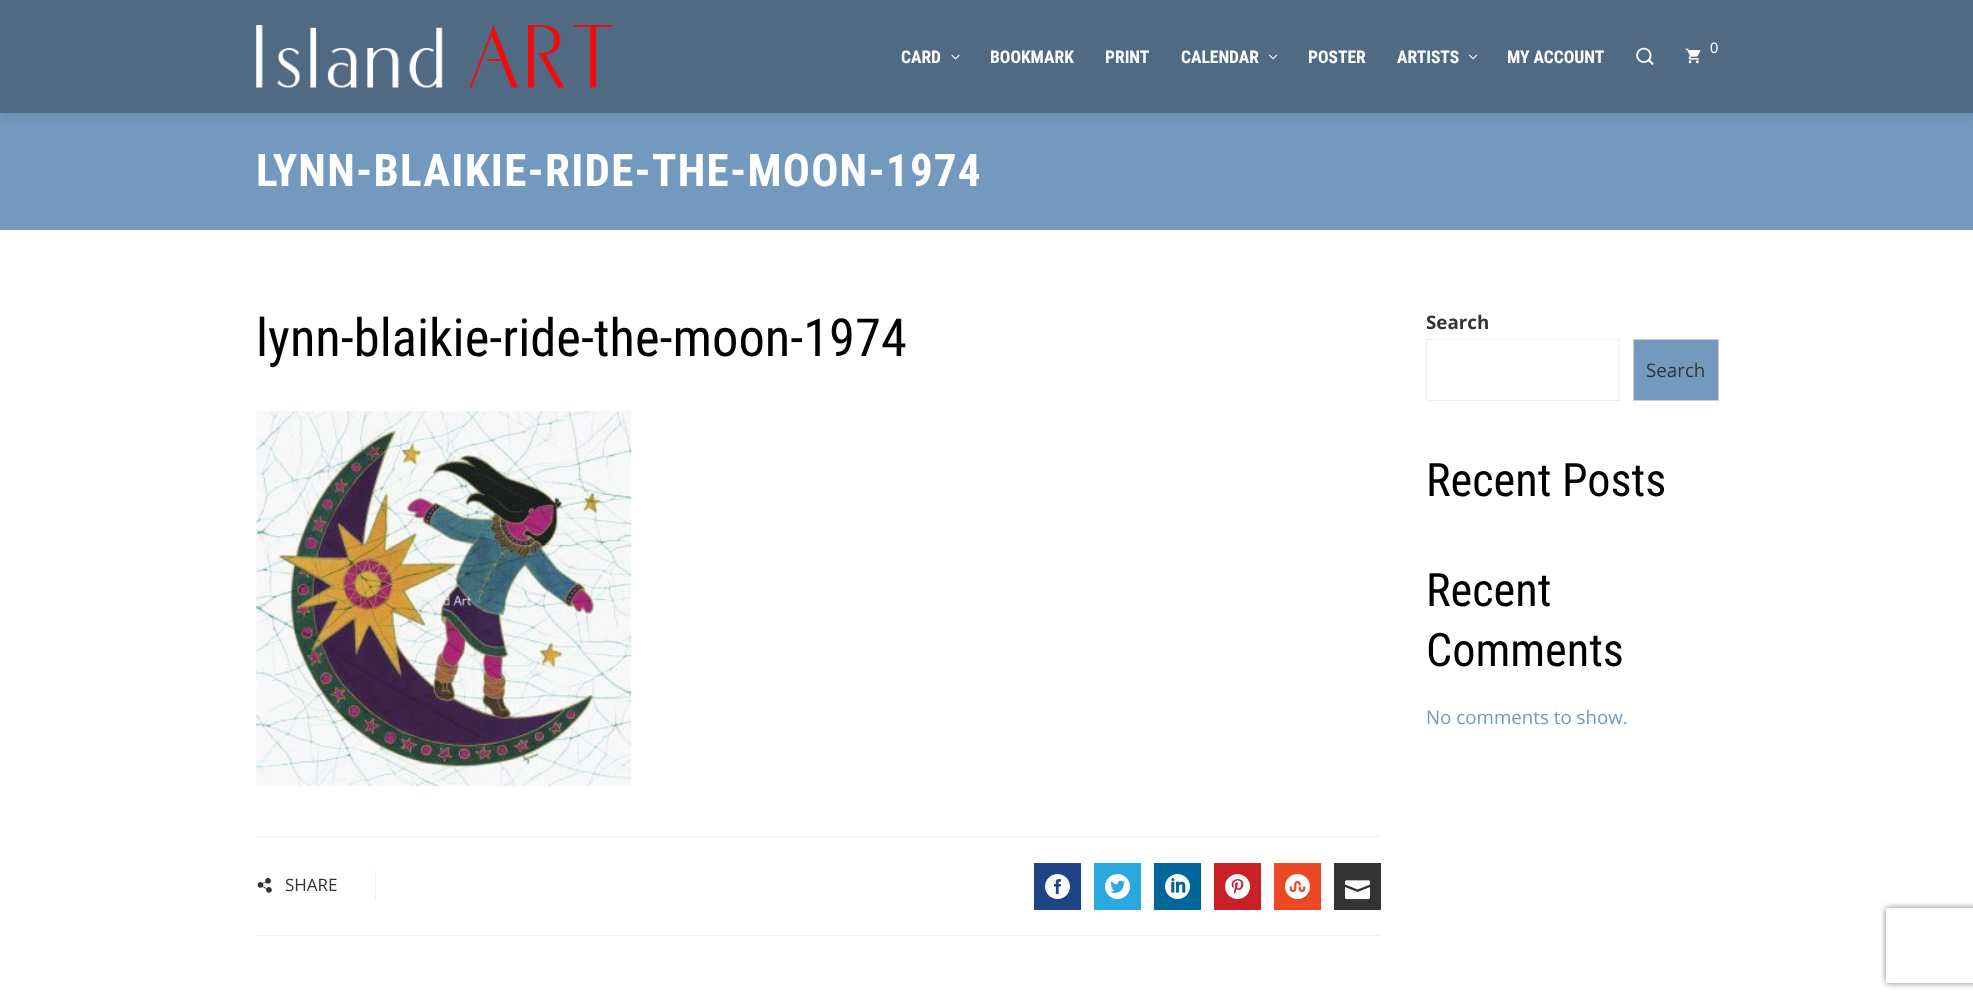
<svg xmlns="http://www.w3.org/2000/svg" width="1973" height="1000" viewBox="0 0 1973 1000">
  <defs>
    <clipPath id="clip1"><path d="M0 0H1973V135H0ZM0 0H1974V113H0Z" clip-rule="evenodd"/></clipPath>
    <filter id="blur1" x="-50%" y="-200%" width="200%" height="500%"><feGaussianBlur stdDeviation="6"/></filter>
    <clipPath id="clip2"><path d="M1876 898H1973V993H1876ZM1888.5 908H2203.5C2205 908 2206 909 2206 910.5V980.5C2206 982 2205 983 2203.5 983H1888.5C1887 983 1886 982 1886 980.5V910.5C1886 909 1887 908 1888.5 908Z" clip-rule="evenodd"/></clipPath>
    <filter id="blur2" x="-50%" y="-200%" width="200%" height="500%"><feGaussianBlur stdDeviation="3"/></filter>
  </defs>
  <rect width="100%" height="100%" fill="#ffffff"/>
  <rect x="0" y="0" width="1973" height="230" fill="#7499bf"/>
  <g clip-path="url(#clip1)">
    <rect x="0" y="4" width="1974" height="112" fill="#000000" fill-opacity="0.1" filter="url(#blur1)"/>
  </g>
  <rect x="0" y="0" width="1973" height="113" fill="#1e242a" fill-opacity="0.4"/>
  <image x="256" y="25" width="357" height="63" href="img1.png"/>
  <text x="901" y="63" font-family="Roboto Condensed" font-size="17.5" font-weight="bold" fill="#ffffff">CARD</text>
  <image x="951" y="54" width="9" height="6" href="img2.png"/>
  <text x="990" y="63" font-family="Roboto Condensed" font-size="17.5" font-weight="bold" fill="#ffffff">BOOKMARK</text>
  <text x="1105" y="63" font-family="Roboto Condensed" font-size="17.5" font-weight="bold" fill="#ffffff">PRINT</text>
  <text x="1181" y="63" font-family="Roboto Condensed" font-size="17.5" font-weight="bold" fill="#ffffff">CALENDAR</text>
  <image x="1269" y="54" width="9" height="6" href="img3.png"/>
  <text x="1308" y="63" font-family="Roboto Condensed" font-size="17.5" font-weight="bold" fill="#ffffff">POSTER</text>
  <text x="1397" y="63" font-family="Roboto Condensed" font-size="17.5" font-weight="bold" fill="#ffffff">ARTISTS</text>
  <image x="1469" y="54" width="9" height="6" href="img3.png"/>
  <text x="1507" y="63" font-family="Roboto Condensed" font-size="17.5" font-weight="bold" fill="#ffffff">MY ACCOUNT</text>
  <image x="1636" y="47" width="18" height="18" href="img4.png"/>
  <image x="1685" y="48" width="16" height="16" href="img5.png"/>
  <text x="1710" y="53" font-family="Liberation Sans" font-size="15" fill="#ffffff">0</text>
  <text x="256" y="186" font-family="Roboto Condensed" font-size="45" font-weight="bold" letter-spacing="1.25" fill="#ffffff">LYNN-BLAIKIE-RIDE-THE-MOON-1974</text>
  <text x="256" y="356" font-family="Roboto Condensed" font-size="52.5" fill="#000000">lynn-blaikie-ride-the-moon-1974</text>
  <image x="256" y="411" width="376" height="376" href="img6.png"/>
  <rect x="256" y="836" width="1125" height="1" fill="#f2f2f2"/>
  <rect x="256" y="935" width="1125" height="1" fill="#f2f2f2"/>
  <rect x="375" y="870" width="1" height="31" fill="#f2f2f2"/>
  <image x="257" y="878" width="15" height="15" href="img7.png"/>
  <text x="285" y="891" font-family="Open Sans" font-size="17" fill="#333333">SHARE</text>
  <rect x="1034" y="863" width="47" height="47" fill="#204385"/>
  <image x="1045" y="874" width="25" height="26" href="img8.png"/>
  <rect x="1094" y="863" width="47" height="47" fill="#2aa9e0"/>
  <image x="1105" y="874" width="25" height="26" href="img9.png"/>
  <rect x="1154" y="863" width="47" height="47" fill="#02669a"/>
  <image x="1165" y="874" width="25" height="26" href="img10.png"/>
  <rect x="1214" y="863" width="47" height="47" fill="#ca2128"/>
  <image x="1225" y="874" width="25" height="26" href="img11.png"/>
  <rect x="1274" y="863" width="47" height="47" fill="#eb4924"/>
  <image x="1285" y="874" width="25" height="26" href="img12.png"/>
  <rect x="1334" y="863" width="47" height="47" fill="#333333"/>
  <image x="1345" y="880" width="25" height="20" href="img13.png"/>
  <text x="1426" y="329" font-family="Open Sans" font-size="18.75" font-weight="bold" fill="#333333">Search</text>
  <rect x="1426.5" y="339.5" width="193" height="61" fill="none" stroke="#eeeeee"/>
  <rect x="1633.5" y="339.5" width="85" height="61" fill="#7499bf" stroke="#cccccc"/>
  <text x="1646" y="377" font-family="Open Sans" font-size="18.75" fill="#333333">Search</text>
  <text x="1426" y="496" font-family="Roboto Condensed" font-size="46.25" fill="#000000">Recent Posts</text>
  <text x="1426" y="606" font-family="Roboto Condensed" font-size="46.25" fill="#000000">Recent</text>
  <text x="1426" y="666" font-family="Roboto Condensed" font-size="46.25" fill="#000000">Comments</text>
  <text x="1426" y="724" font-family="Open Sans" font-size="18.75" fill="#7499bf">No comments to show.</text>
  <g clip-path="url(#clip2)">
    <rect x="1886" y="908" width="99" height="75" rx="2.5" fill="#808080" filter="url(#blur2)"/>
  </g>
</svg>
